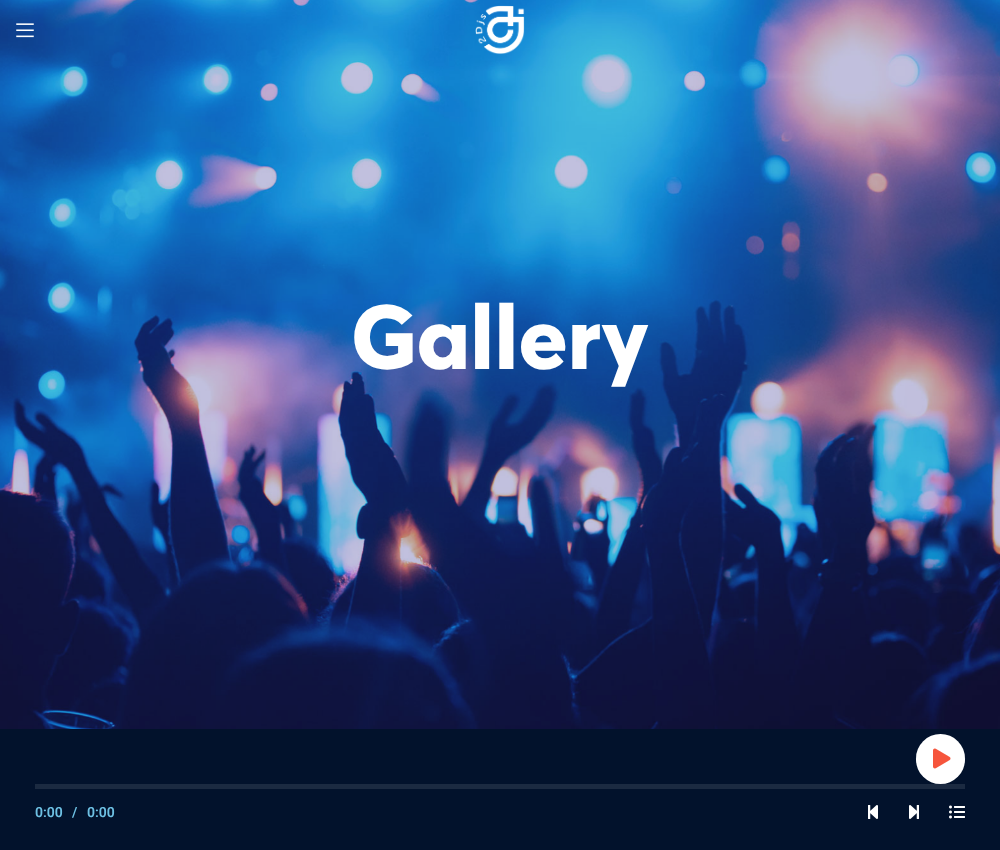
<svg xmlns="http://www.w3.org/2000/svg" width="1000" height="850" viewBox="0 0 1000 850">
  <rect width="100%" height="100%" fill="#ffffff"/>
  <image x="0" y="0" width="1000" height="729" href="img3.png"/>
  <image x="16" y="23" width="18" height="15" href="img1.png"/>
  <image x="475" y="5" width="50" height="50" href="img2.png"/>
  <text x="351" y="369" font-family="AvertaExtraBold" font-size="90" font-weight="800" fill="#ffffff">Gallery</text>
  <rect x="0" y="729" width="1000" height="121" fill="#02122c"/>
  <rect x="916" y="734" width="49" height="50" rx="24.5" fill="#ffffff"/>
  <image x="933" y="748" width="18" height="21" href="img4.png"/>
  <rect x="35" y="784" width="930" height="5" fill="#1b2a41"/>
  <text x="35" y="817" font-family="Roboto" font-size="14" font-weight="600" fill="#6ec1e4">0:00</text>
  <text x="72" y="817" font-family="Roboto" font-size="14" font-weight="600" fill="#6ec1e4">/</text>
  <text x="87" y="817" font-family="Roboto" font-size="14" font-weight="600" fill="#6ec1e4">0:00</text>
  <image x="868" y="805" width="10" height="14" href="img5.png"/>
  <image x="909" y="805" width="10" height="14" href="img6.png"/>
  <image x="949" y="805" width="16" height="14" href="img7.png"/>
</svg>
